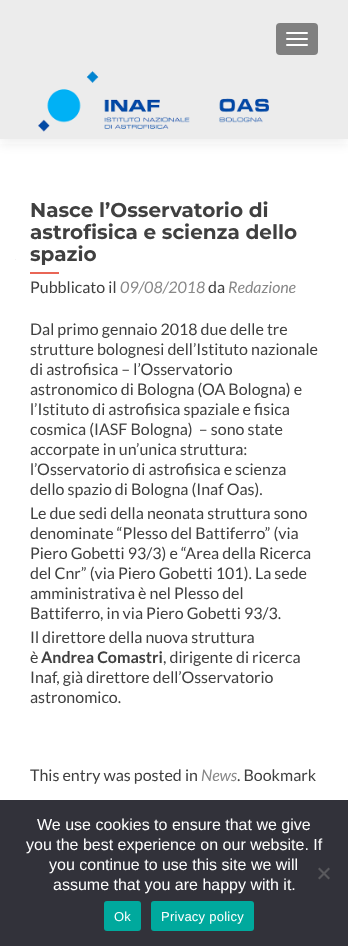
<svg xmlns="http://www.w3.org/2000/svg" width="348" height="946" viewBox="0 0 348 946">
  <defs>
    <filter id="blur1" x="-50%" y="-200%" width="200%" height="500%"><feGaussianBlur stdDeviation="5.5"/></filter>
  </defs>
  <rect width="100%" height="100%" fill="#ffffff"/>
  <rect x="0" y="5" width="348" height="139" fill="#323232" fill-opacity="0.08" filter="url(#blur1)"/>
  <rect x="0" y="0" width="348" height="139" fill="#ececec"/>
  <rect x="276" y="23" width="42" height="32" rx="4" fill="#808080"/>
  <rect x="286" y="32" width="22" height="2" rx="1" fill="#ffffff"/>
  <rect x="286" y="38" width="22" height="2" rx="1" fill="#ffffff"/>
  <rect x="286" y="44" width="22" height="2" rx="1" fill="#ffffff"/>
  <image x="38" y="71" width="231" height="61" href="img1.png"/>
  <rect x="15" y="259" width="1" height="1" fill="#f2f2f2"/>
  <text x="30" y="217" font-family="Montserrat" font-size="20" font-weight="100" fill="#404040">Nasce l’Osservatorio di</text>
  <text x="30" y="239" font-family="Montserrat" font-size="20" font-weight="100" fill="#404040">astrofisica e scienza dello</text>
  <text x="30" y="261" font-family="Montserrat" font-size="20" font-weight="100" fill="#404040">spazio</text>
  <rect x="30" y="272" width="29" height="2" fill="#e96656"/>
  <text x="30" y="293" font-family="Lato" font-size="16" fill="#404040">Pubblicato il</text>
  <text x="120" y="293" font-family="Lato" font-size="16" font-style="italic" fill="#888888">09/08/2018</text>
  <text x="208" y="293" font-family="Lato" font-size="16" fill="#404040">da</text>
  <text x="228" y="293" font-family="Lato" font-size="16" font-style="italic" fill="#888888">Redazione</text>
  <text x="30" y="335" font-family="Lato" font-size="16" fill="#404040">Dal primo gennaio 2018 due delle tre</text>
  <text x="30" y="355" font-family="Lato" font-size="16" fill="#404040">strutture bolognesi dell’Istituto nazionale</text>
  <text x="30" y="375" font-family="Lato" font-size="16" fill="#404040">di astrofisica – l’Osservatorio</text>
  <text x="30" y="395" font-family="Lato" font-size="16" fill="#404040">astronomico di Bologna (OA Bologna) e</text>
  <text x="30" y="415" font-family="Lato" font-size="16" fill="#404040">l’Istituto di astrofisica spaziale e fisica</text>
  <text x="30" y="435" font-family="Lato" font-size="16" fill="#404040" xml:space="preserve">cosmica (IASF Bologna)  – sono state</text>
  <text x="30" y="455" font-family="Lato" font-size="16" fill="#404040">accorpate in un’unica struttura:</text>
  <text x="30" y="475" font-family="Lato" font-size="16" fill="#404040">l’Osservatorio di astrofisica e scienza</text>
  <text x="30" y="495" font-family="Lato" font-size="16" fill="#404040">dello spazio di Bologna (Inaf Oas).</text>
  <text x="30" y="519" font-family="Lato" font-size="16" fill="#404040">Le due sedi della neonata struttura sono</text>
  <text x="30" y="539" font-family="Lato" font-size="16" fill="#404040">denominate “Plesso del Battiferro” (via</text>
  <text x="30" y="559" font-family="Lato" font-size="16" fill="#404040">Piero Gobetti 93/3) e “Area della Ricerca</text>
  <text x="30" y="579" font-family="Lato" font-size="16" fill="#404040">del Cnr” (via Piero Gobetti 101). La sede</text>
  <text x="30" y="599" font-family="Lato" font-size="16" fill="#404040">amministrativa è nel Plesso del</text>
  <text x="30" y="619" font-family="Lato" font-size="16" fill="#404040">Battiferro, in via Piero Gobetti 93/3.</text>
  <text x="30" y="643" font-family="Lato" font-size="16" fill="#404040">Il direttore della nuova struttura</text>
  <text x="30" y="663" font-family="Lato" font-size="16" fill="#404040">è</text>
  <text x="41" y="663" font-family="Lato" font-size="16" font-weight="bold" fill="#404040">Andrea Comastri</text>
  <text x="163" y="663" font-family="Lato" font-size="16" fill="#404040">, dirigente di ricerca</text>
  <text x="30" y="683" font-family="Lato" font-size="16" fill="#404040">Inaf, già direttore dell’Osservatorio</text>
  <text x="30" y="703" font-family="Lato" font-size="16" fill="#404040">astronomico.</text>
  <text x="30" y="781" font-family="Lato" font-size="16" fill="#404040">This entry was posted in</text>
  <text x="201" y="781" font-family="Lato" font-size="16" font-style="italic" fill="#888888">News</text>
  <text x="237" y="781" font-family="Lato" font-size="16" fill="#404040">. Bookmark</text>
  <rect x="0" y="800" width="348" height="146" fill="#32323a"/>
  <text x="37" y="830" font-family="Liberation Sans" font-size="16" fill="#ffffff">We use cookies to ensure that we give</text>
  <text x="26" y="850" font-family="Liberation Sans" font-size="16" fill="#ffffff">you the best experience on our website. If</text>
  <text x="49" y="870" font-family="Liberation Sans" font-size="16" fill="#ffffff">you continue to use this site we will</text>
  <text x="53" y="890" font-family="Liberation Sans" font-size="16" fill="#ffffff">assume that you are happy with it.</text>
  <path d="M328.5 867.5L330 869L319.5 879.5L318 878Z" fill="#59595d"/>
  <path d="M318 869L319.5 867.5L330 878L328.5 879.5Z" fill="#59595d"/>
  <rect x="104" y="901" width="37" height="30" rx="3" fill="#00a99d"/>
  <text x="114" y="921" font-family="Liberation Sans" font-size="13" letter-spacing="0.25" fill="#ffffff">Ok</text>
  <rect x="151" y="901" width="103" height="30" rx="3" fill="#00a99d"/>
  <text x="161" y="921" font-family="Liberation Sans" font-size="13" letter-spacing="0.25" fill="#ffffff">Privacy policy</text>
</svg>
